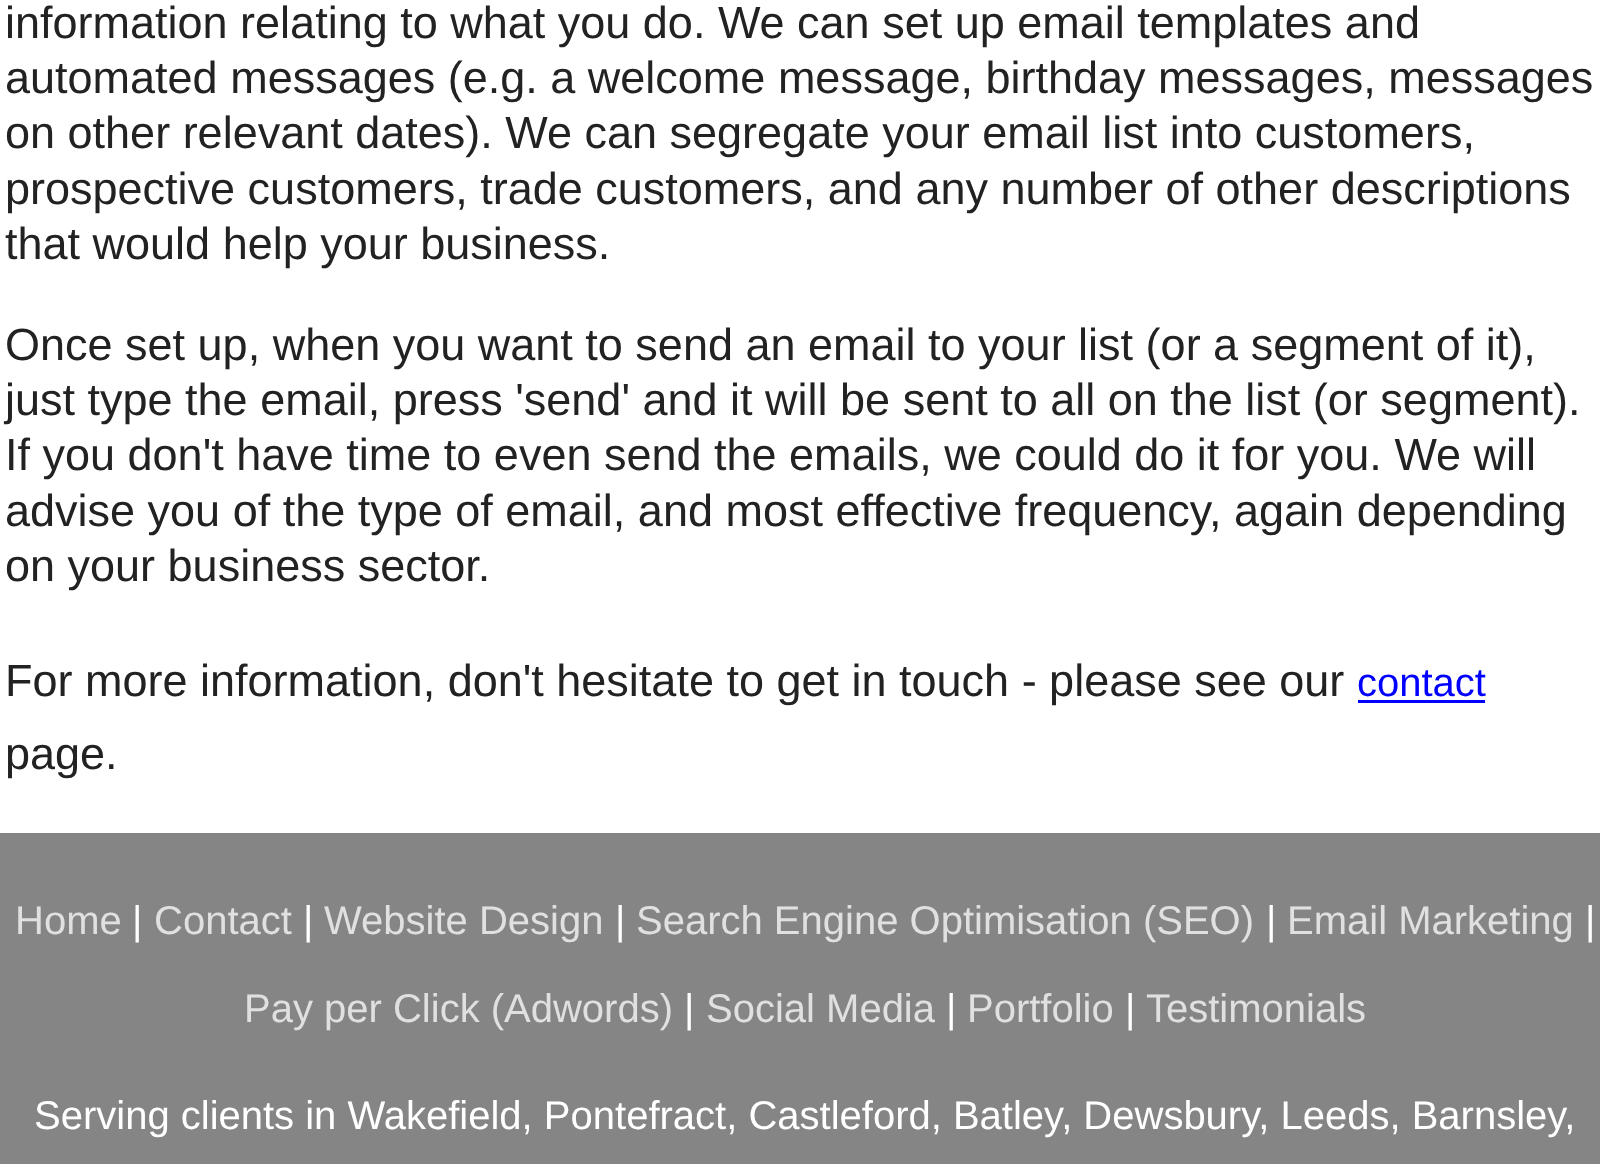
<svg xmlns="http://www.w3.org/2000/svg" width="1600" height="1164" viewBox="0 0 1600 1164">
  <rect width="100%" height="100%" fill="#ffffff"/>
  <text x="5" y="38" font-family="Liberation Sans" font-size="45" fill="#222222">information relating to what you do. We can set up email templates and</text>
  <text x="5" y="93" font-family="Liberation Sans" font-size="45" fill="#222222">automated messages (e.g. a welcome message, birthday messages, messages</text>
  <text x="5" y="148" font-family="Liberation Sans" font-size="45" fill="#222222">on other relevant dates). We can segregate your email list into customers,</text>
  <text x="5" y="204" font-family="Liberation Sans" font-size="45" fill="#222222">prospective customers, trade customers, and any number of other descriptions</text>
  <text x="5" y="259" font-family="Liberation Sans" font-size="45" fill="#222222">that would help your business.</text>
  <text x="5" y="360" font-family="Liberation Sans" font-size="45" fill="#222222">Once set up, when you want to send an email to your list (or a segment of it),</text>
  <text x="5" y="415" font-family="Liberation Sans" font-size="45" fill="#222222">just type the email, press 'send' and it will be sent to all on the list (or segment).</text>
  <text x="5" y="470" font-family="Liberation Sans" font-size="45" fill="#222222">If you don't have time to even send the emails, we could do it for you. We will</text>
  <text x="5" y="526" font-family="Liberation Sans" font-size="45" fill="#222222">advise you of the type of email, and most effective frequency, again depending</text>
  <text x="5" y="581" font-family="Liberation Sans" font-size="45" fill="#222222">on your business sector.</text>
  <text x="5" y="696" font-family="Liberation Sans" font-size="45" fill="#222222">For more information, don't hesitate to get in touch - please see our</text>
  <text x="1357" y="696" font-family="Liberation Sans" font-size="40" fill="#0000ff">contact</text>
  <rect x="1358" y="700" width="127" height="3" fill="#0000ff"/>
  <text x="5" y="769" font-family="Liberation Sans" font-size="45" fill="#222222">page.</text>
  <rect x="0" y="833" width="1600" height="331" fill="#858585"/>
  <text x="15" y="934" font-family="Liberation Sans" font-size="40" fill="#e0e0e0">Home</text>
  <text x="132" y="934" font-family="Liberation Sans" font-size="40" fill="#ffffff">|</text>
  <text x="154" y="934" font-family="Liberation Sans" font-size="40" fill="#e0e0e0">Contact</text>
  <text x="303" y="934" font-family="Liberation Sans" font-size="40" fill="#ffffff">|</text>
  <text x="324" y="934" font-family="Liberation Sans" font-size="40" fill="#e0e0e0">Website Design</text>
  <text x="615" y="934" font-family="Liberation Sans" font-size="40" fill="#ffffff">|</text>
  <text x="636" y="934" font-family="Liberation Sans" font-size="40" fill="#e0e0e0">Search Engine Optimisation (SEO)</text>
  <text x="1266" y="934" font-family="Liberation Sans" font-size="40" fill="#ffffff">|</text>
  <text x="1287" y="934" font-family="Liberation Sans" font-size="40" fill="#e0e0e0">Email Marketing</text>
  <text x="1585" y="934" font-family="Liberation Sans" font-size="40" fill="#ffffff">|</text>
  <text x="244" y="1022" font-family="Liberation Sans" font-size="40" fill="#e0e0e0">Pay per Click (Adwords)</text>
  <text x="684" y="1022" font-family="Liberation Sans" font-size="40" fill="#ffffff">|</text>
  <text x="706" y="1022" font-family="Liberation Sans" font-size="40" fill="#e0e0e0">Social Media</text>
  <text x="946" y="1022" font-family="Liberation Sans" font-size="40" fill="#ffffff">|</text>
  <text x="967" y="1022" font-family="Liberation Sans" font-size="40" fill="#e0e0e0">Portfolio</text>
  <text x="1125" y="1022" font-family="Liberation Sans" font-size="40" fill="#ffffff">|</text>
  <text x="1146" y="1022" font-family="Liberation Sans" font-size="40" fill="#e0e0e0">Testimonials</text>
  <text x="34" y="1129" font-family="Liberation Sans" font-size="40" fill="#ffffff">Serving clients in Wakefield, Pontefract, Castleford, Batley, Dewsbury, Leeds, Barnsley,</text>
</svg>
